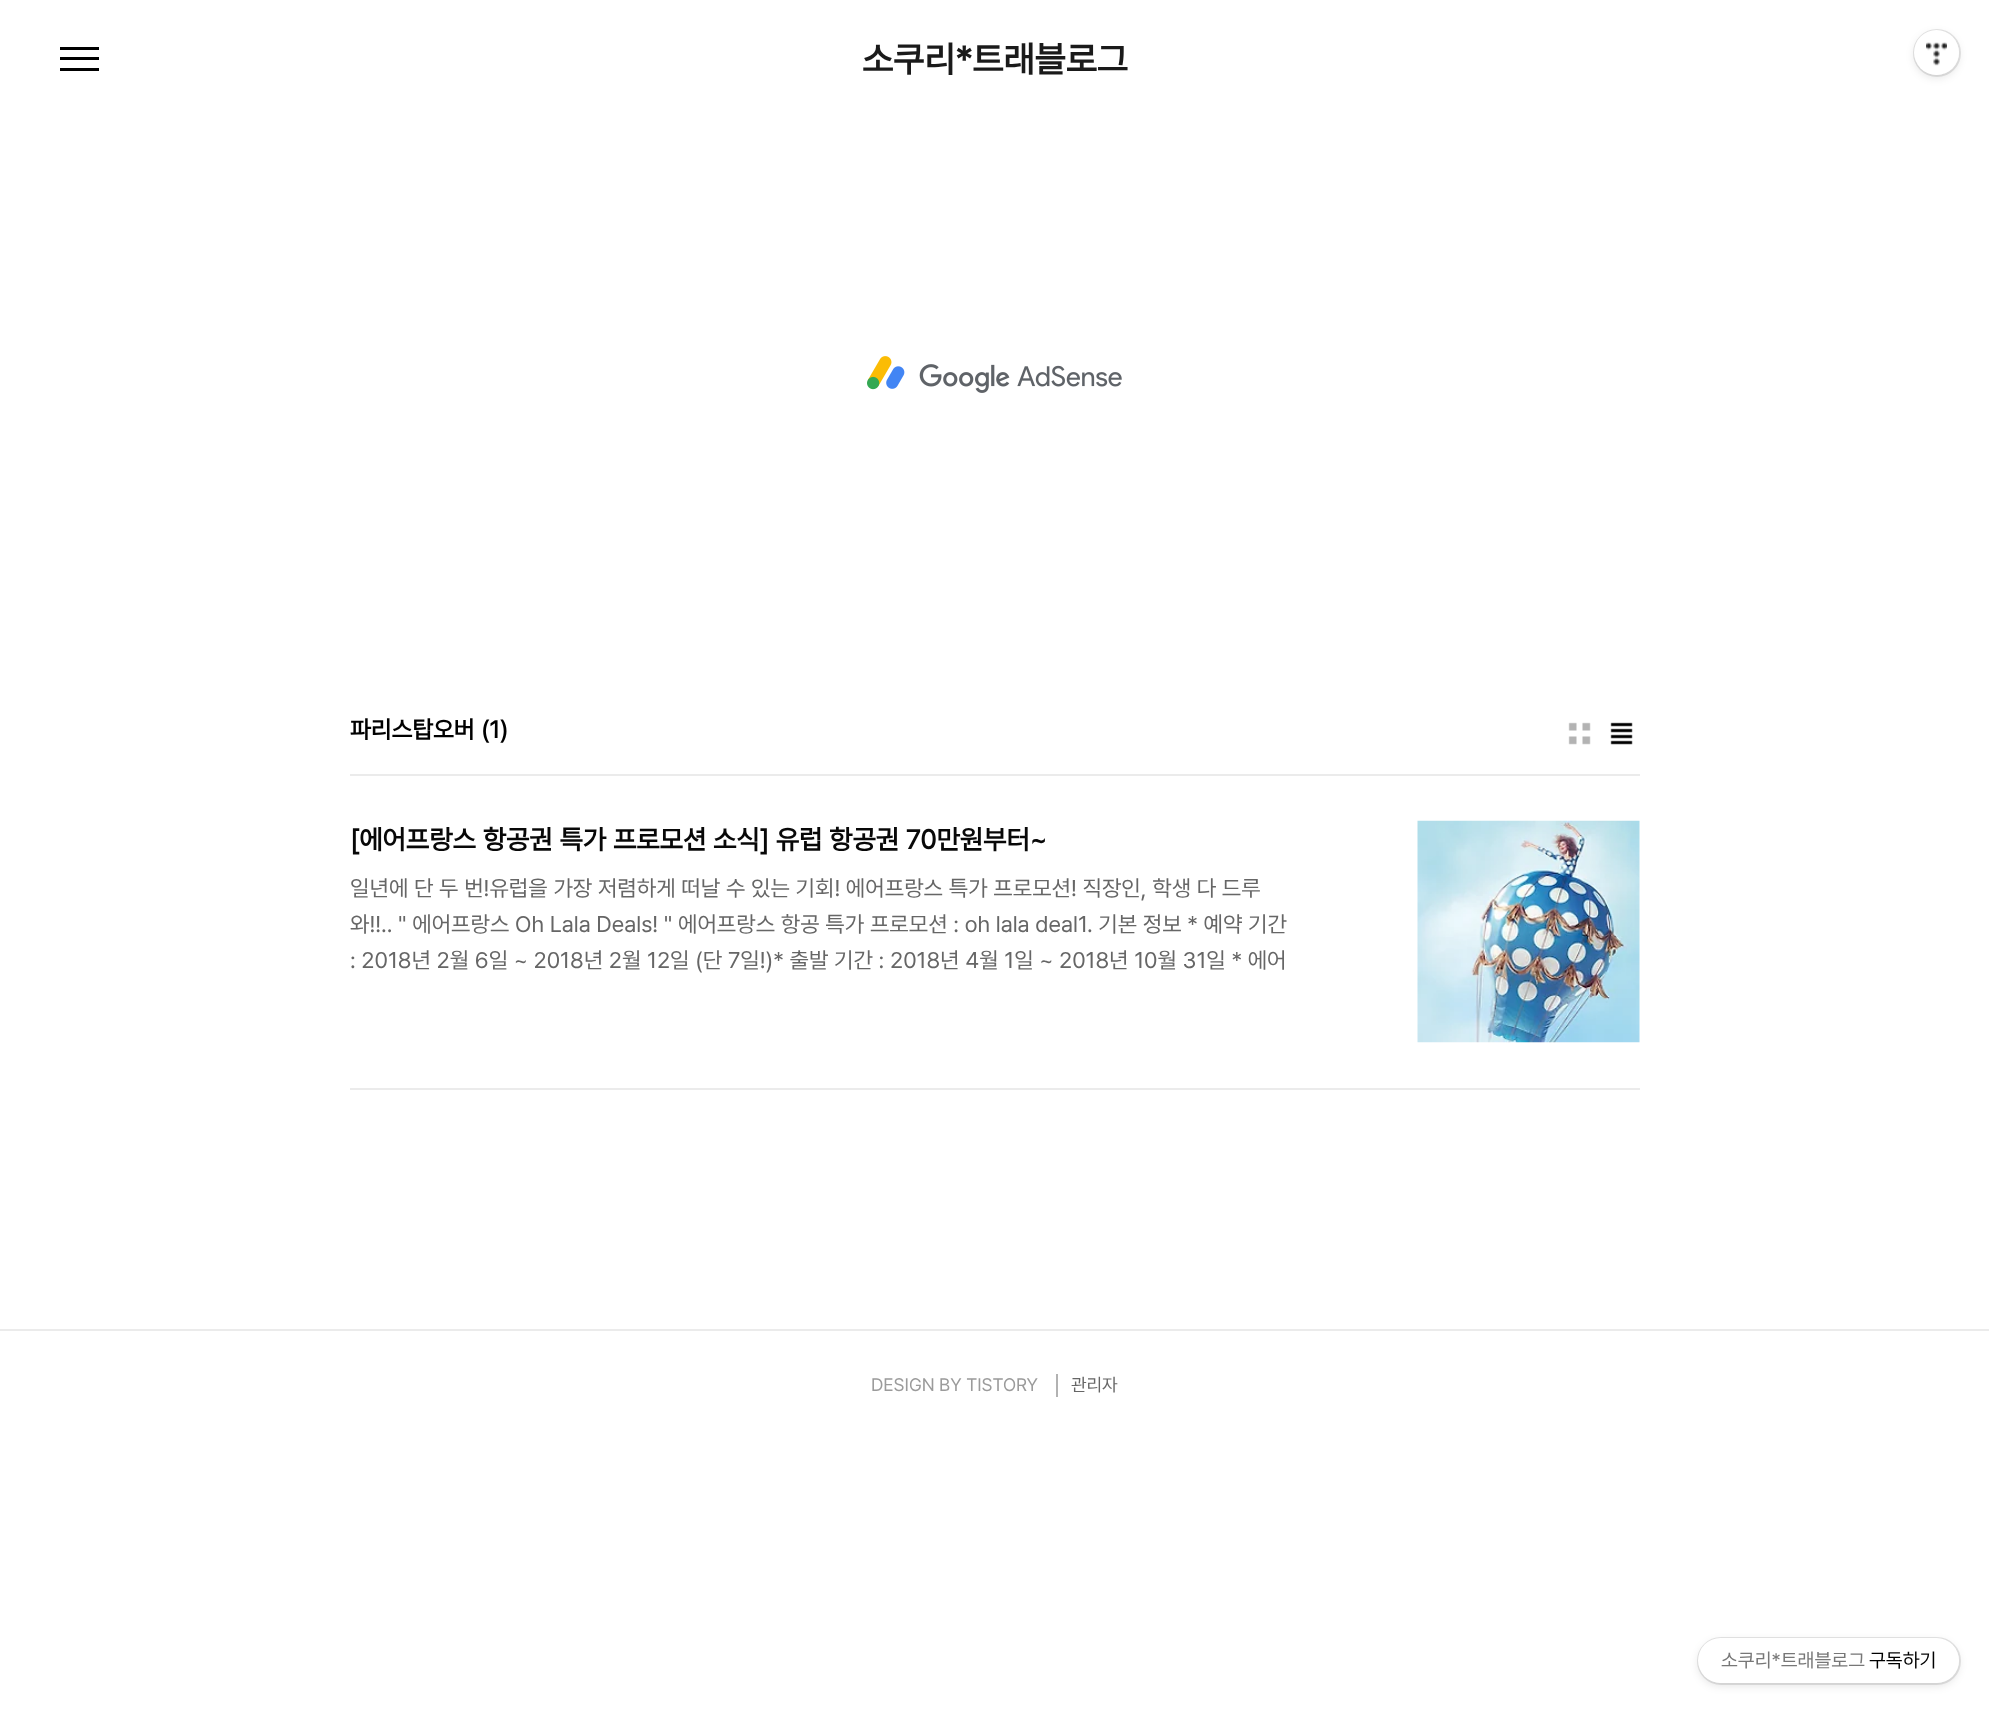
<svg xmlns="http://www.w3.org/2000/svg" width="1989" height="1712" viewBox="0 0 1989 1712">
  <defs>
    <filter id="blur1" x="-50%" y="-200%" width="200%" height="500%"><feGaussianBlur stdDeviation="4"/></filter>
  </defs>
  <rect width="100%" height="100%" fill="#ffffff"/>
  <rect x="60" y="47" width="39" height="3" fill="#000000"/>
  <rect x="60" y="57" width="39" height="3" fill="#000000"/>
  <rect x="60" y="68" width="39" height="3" fill="#000000"/>
  <text x="862" y="72" font-family="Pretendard" font-size="36" font-weight="bold" fill="#1a1a1a">소쿠리*트래블로그</text>
  <image x="1916" y="61" width="28" height="13" href="img1.png"/>
  <image x="867" y="356" width="255" height="37" href="img2.png"/>
  <rect x="350" y="774" width="1290" height="2" fill="#ebebeb"/>
  <text x="350" y="738" font-family="Pretendard" font-size="24" font-weight="bold" fill="#000000">파리스탑오버</text>
  <text x="481" y="738" font-family="Pretendard" font-size="24" font-weight="bold" fill="#000000">(1)</text>
  <image x="1568" y="722" width="23" height="23" href="img3.png"/>
  <image x="1610" y="722" width="23" height="23" href="img4.png"/>
  <rect x="350" y="1088" width="1290" height="2" fill="#ebebeb"/>
  <text x="350" y="849" font-family="Pretendard" font-size="27" font-weight="bold" fill="#080808">[에어프랑스 항공권 특가 프로모션 소식] 유럽 항공권 70만원부터~</text>
  <image x="1417" y="820" width="223" height="223" href="img5.png"/>
  <text x="350" y="896" font-family="Pretendard" font-size="22.5" fill="#666666">일년에 단 두 번!유럽을 가장 저렴하게 떠날 수 있는 기회! 에어프랑스 특가 프로모션! 직장인, 학생 다 드루</text>
  <text x="350" y="932" font-family="Pretendard" font-size="22.5" fill="#666666">와!!.. " 에어프랑스 Oh Lala Deals! " 에어프랑스 항공 특가 프로모션 : oh lala deal1. 기본 정보 * 예약 기간</text>
  <text x="350" y="968" font-family="Pretendard" font-size="22.5" fill="#666666">: 2018년 2월 6일 ~ 2018년 2월 12일 (단 7일!)* 출발 기간 : 2018년 4월 1일 ~ 2018년 10월 31일 * 에어</text>
  <rect x="0" y="1329" width="1989" height="2" fill="#ebebeb"/>
  <text x="871" y="1391" font-family="Pretendard" font-size="18" fill="#9b9b9b">DESIGN BY TISTORY</text>
  <rect x="1056" y="1374" width="2" height="23" fill="#b2b2b2"/>
  <text x="1071" y="1391" font-family="Pretendard" font-size="18" fill="#666666">관리자</text>
  <rect x="1914" y="33" width="45" height="45" rx="22.5" fill="#000000" fill-opacity="0.1" filter="url(#blur1)"/>
  <circle cx="1937" cy="53" r="23" fill="none" stroke="#000000" stroke-opacity="0.1" stroke-width="2"/>
  <circle cx="1936.5" cy="52.5" r="22.5" fill="#ffffff"/>
  <image x="1926" y="42" width="21" height="24" href="img6.png"/>
  <rect x="1698" y="1641" width="261" height="45" rx="22.5" fill="#000000" fill-opacity="0.1" filter="url(#blur1)"/>
  <rect x="1698" y="1638" width="262" height="46" rx="23" fill="none" stroke="#000000" stroke-opacity="0.1" stroke-width="2"/>
  <rect x="1698" y="1638" width="261" height="45" rx="22.5" fill="#ffffff"/>
  <text x="1721" y="1667" font-family="Pretendard" font-size="19.5" fill="#777777">소쿠리*트래블로그</text>
  <text x="1869" y="1667" font-family="Pretendard" font-size="19.5" fill="#000000">구독하기</text>
</svg>
